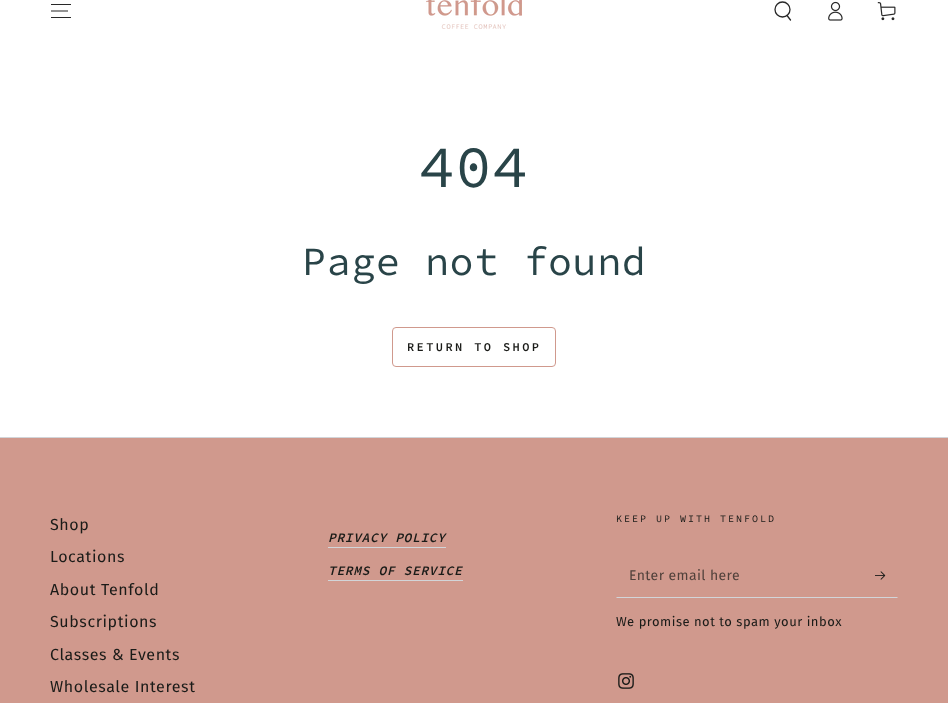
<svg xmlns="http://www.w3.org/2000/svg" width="948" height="703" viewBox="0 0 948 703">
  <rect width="100%" height="100%" fill="#ffffff"/>
  <path d="M51 17.5H71M51 11H68M51 4.5H71" fill="none" stroke="#282828" stroke-width="1.1"/>
  <image x="426" y="0" width="96" height="29" href="img1.png"/>
  <circle cx="782.5" cy="9.5" r="7.5" fill="none" stroke="#282828" stroke-width="1.3"/>
  <path d="M787 15.5L790.5 20" fill="none" stroke="#282828" stroke-width="1.3" stroke-linecap="round"/>
  <image x="828" y="1" width="15" height="20" href="img2.png"/>
  <image x="877" y="2" width="19" height="19" href="img3.png"/>
  <text x="419" y="187" font-family="Source Code Pro" font-size="60" letter-spacing="0.6" fill="#294448">404</text>
  <text x="302" y="275" font-family="Source Code Pro" font-size="40" letter-spacing="0.6" fill="#294448">Page not found</text>
  <rect x="392.5" y="327.5" width="163" height="39" rx="3.5" fill="none" stroke="#d0998d"/>
  <text x="407" y="351" font-family="Source Code Pro" font-size="12" font-weight="600" letter-spacing="2.4" fill="#1a1b18">RETURN TO SHOP</text>
  <rect x="0" y="438" width="948" height="265" fill="#d0998d"/>
  <rect x="0" y="437" width="948" height="1" fill="#d2d5d9"/>
  <text x="50" y="530" font-family="Fira Sans" font-size="16" letter-spacing="0.6" fill="#1a1b18">Shop</text>
  <text x="50" y="562" font-family="Fira Sans" font-size="16" letter-spacing="0.6" fill="#1a1b18">Locations</text>
  <text x="50" y="595" font-family="Fira Sans" font-size="16" letter-spacing="0.6" fill="#1a1b18">About Tenfold</text>
  <text x="50" y="627" font-family="Fira Sans" font-size="16" letter-spacing="0.6" fill="#1a1b18">Subscriptions</text>
  <text x="50" y="660" font-family="Fira Sans" font-size="16" letter-spacing="0.6" fill="#1a1b18">Classes &amp; Events</text>
  <text x="50" y="692" font-family="Fira Sans" font-size="16" letter-spacing="0.6" fill="#1a1b18">Wholesale Interest</text>
  <text x="328" y="542" font-family="Source Code Pro" font-size="13" font-weight="600" font-style="italic" letter-spacing="0.6" fill="#1a1b18">PRIVACY POLICY</text>
  <rect x="328" y="547" width="118" height="1" fill="#d2d5d9"/>
  <text x="328" y="575" font-family="Source Code Pro" font-size="13" font-weight="600" font-style="italic" letter-spacing="0.6" fill="#1a1b18">TERMS OF SERVICE</text>
  <rect x="328" y="580" width="135" height="1" fill="#d2d5d9"/>
  <text x="616" y="522" font-family="Source Code Pro" font-size="10" letter-spacing="2" fill="#1a1b18">KEEP UP WITH TENFOLD</text>
  <path d="M898 598H616L617 597H897Z" fill="#d2d5d9"/>
  <text x="629" y="580" font-family="Fira Sans" font-size="14" letter-spacing="0.4" fill="#51413b">Enter email here</text>
  <image x="875" y="571" width="11" height="9" href="img4.png"/>
  <text x="616" y="626" font-family="Fira Sans" font-size="13" letter-spacing="0.5" fill="#1a1b18">We promise not to spam your inbox</text>
  <image x="618" y="673" width="16" height="16" href="img5.png"/>
</svg>
